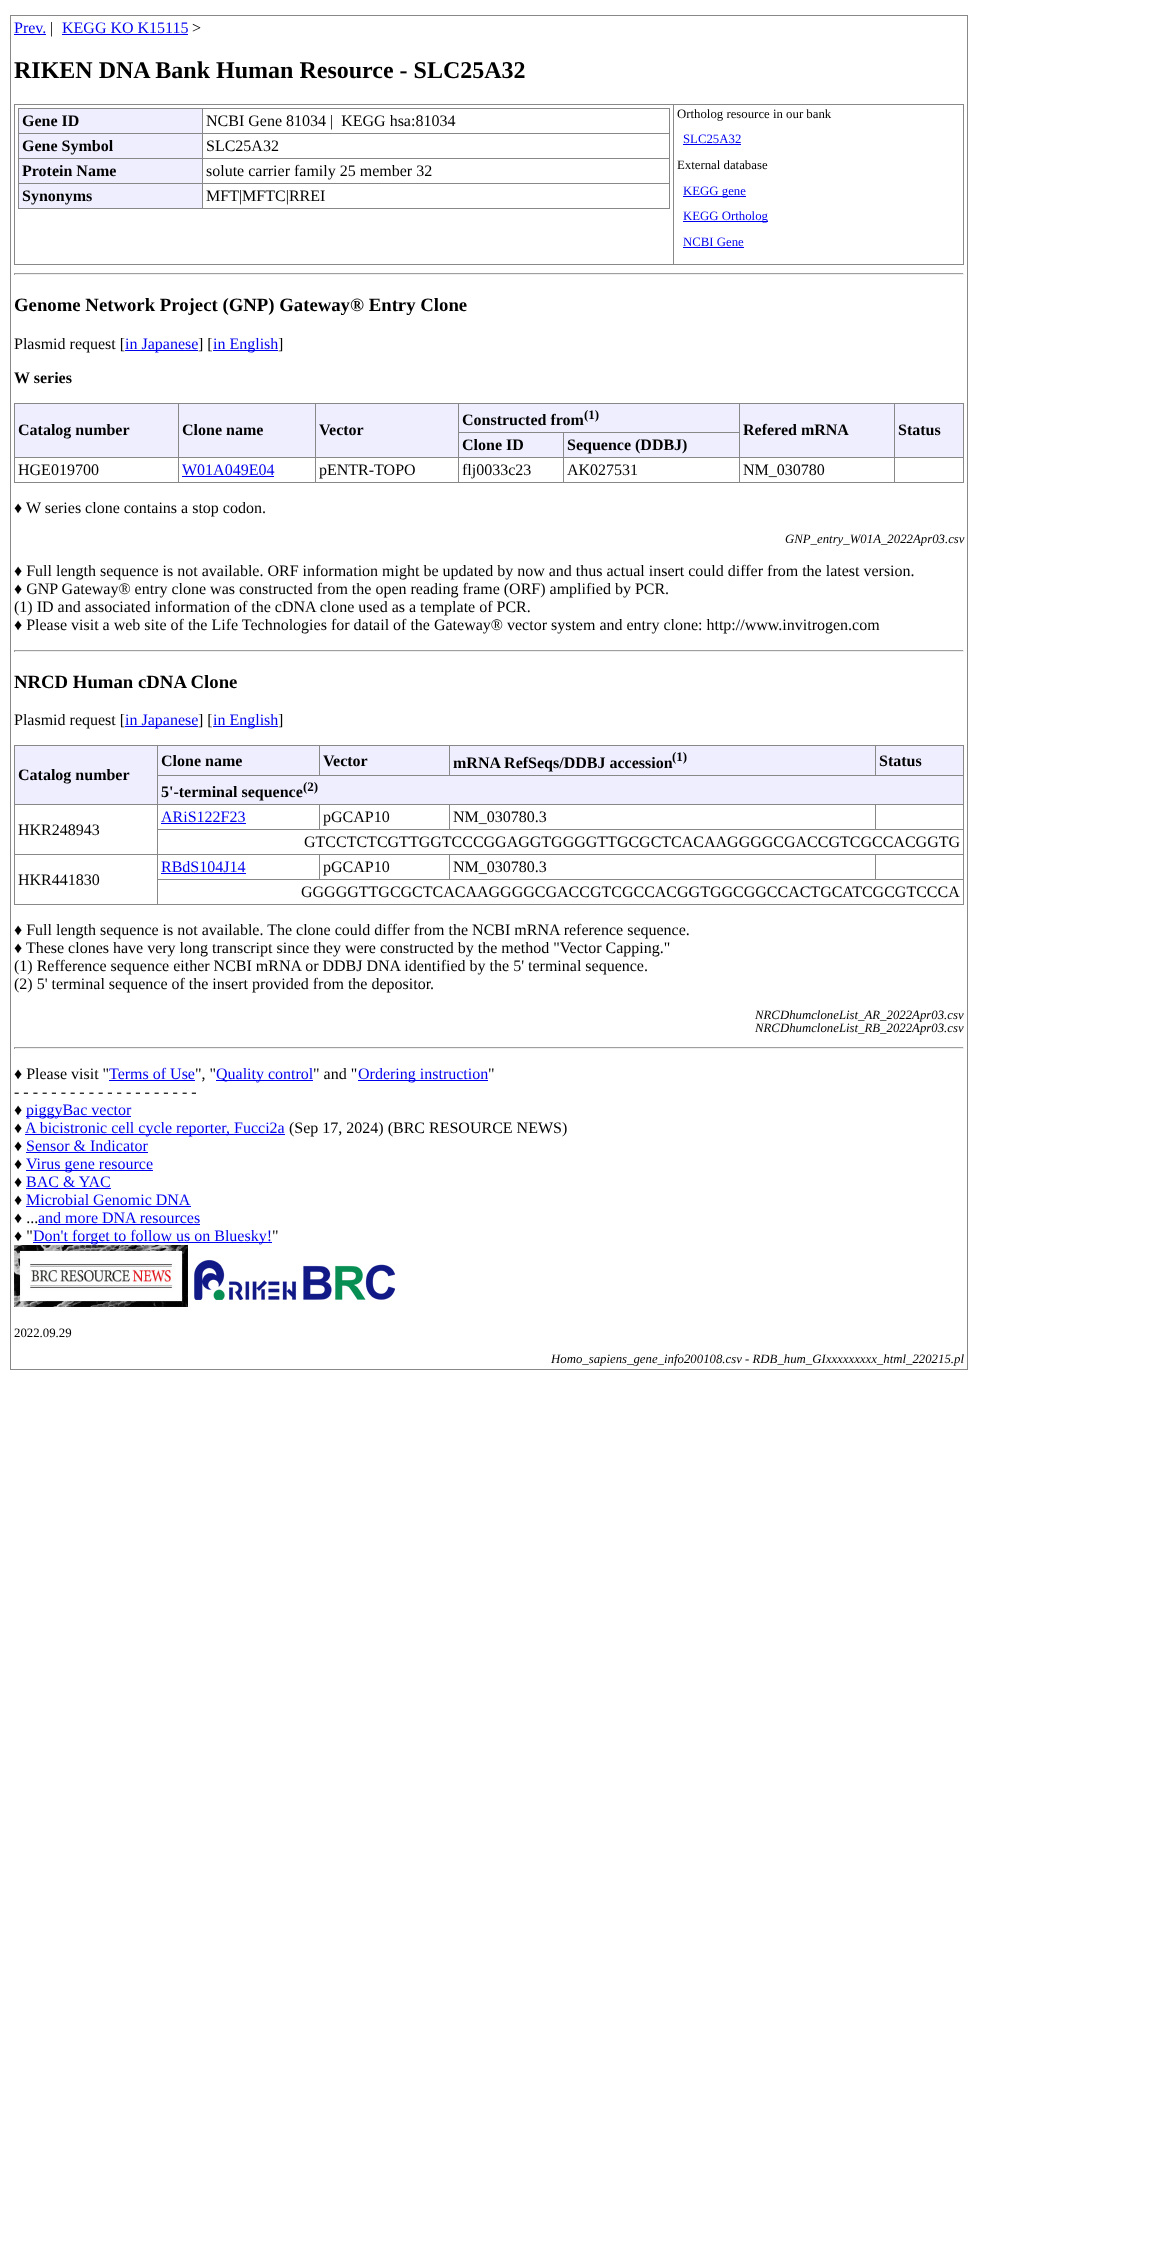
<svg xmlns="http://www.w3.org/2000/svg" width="1168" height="2252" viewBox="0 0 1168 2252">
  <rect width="100%" height="100%" fill="#ffffff"/>
  <rect x="10" y="15" width="958" height="1" fill="#888888"/>
  <rect x="967" y="15" width="1" height="1355" fill="#888888"/>
  <rect x="10" y="1369" width="958" height="1" fill="#888888"/>
  <rect x="10" y="15" width="1" height="1355" fill="#888888"/>
  <text x="14" y="33" font-family="Liberation Serif" font-size="16" fill="#0000ee">Prev.</text>
  <rect x="14" y="34" width="32" height="1" fill="#0000ee"/>
  <text x="50" y="33" font-family="Liberation Serif" font-size="16" fill="#000000">|</text>
  <text x="62" y="33" font-family="Liberation Serif" font-size="16" fill="#0000ee">KEGG KO K15115</text>
  <rect x="62" y="34" width="126" height="1" fill="#0000ee"/>
  <text x="192" y="33" font-family="Liberation Serif" font-size="16" fill="#000000">&gt;</text>
  <text x="14" y="78" font-family="Liberation Serif" font-size="24" font-weight="bold" fill="#000000">RIKEN DNA Bank Human Resource - SLC25A32</text>
  <rect x="14" y="104" width="950" height="1" fill="#888888"/>
  <rect x="963" y="104" width="1" height="161" fill="#888888"/>
  <rect x="14" y="264" width="950" height="1" fill="#888888"/>
  <rect x="14" y="104" width="1" height="161" fill="#888888"/>
  <rect x="18" y="108" width="652" height="1" fill="#888888"/>
  <rect x="669" y="108" width="1" height="101" fill="#888888"/>
  <rect x="18" y="208" width="652" height="1" fill="#888888"/>
  <rect x="18" y="108" width="1" height="101" fill="#888888"/>
  <rect x="19" y="109" width="183" height="24" fill="#eeeeff"/>
  <text x="22" y="126" font-family="Liberation Serif" font-size="16" font-weight="bold" fill="#000000">Gene ID</text>
  <rect x="202" y="133" width="468" height="1" fill="#888888"/>
  <rect x="202" y="158" width="468" height="1" fill="#888888"/>
  <rect x="202" y="183" width="468" height="1" fill="#888888"/>
  <rect x="202" y="183" width="1" height="26" fill="#888888"/>
  <rect x="18" y="183" width="185" height="1" fill="#888888"/>
  <rect x="202" y="158" width="1" height="26" fill="#888888"/>
  <rect x="18" y="158" width="185" height="1" fill="#888888"/>
  <rect x="202" y="133" width="1" height="26" fill="#888888"/>
  <rect x="18" y="133" width="185" height="1" fill="#888888"/>
  <rect x="202" y="108" width="1" height="26" fill="#888888"/>
  <text x="206" y="126" font-family="Liberation Serif" font-size="16" fill="#000000" xml:space="preserve">NCBI Gene 81034 |  KEGG hsa:81034</text>
  <rect x="19" y="134" width="183" height="24" fill="#eeeeff"/>
  <text x="22" y="151" font-family="Liberation Serif" font-size="16" font-weight="bold" fill="#000000">Gene Symbol</text>
  <text x="206" y="151" font-family="Liberation Serif" font-size="16" fill="#000000">SLC25A32</text>
  <rect x="19" y="159" width="183" height="24" fill="#eeeeff"/>
  <text x="22" y="176" font-family="Liberation Serif" font-size="16" font-weight="bold" fill="#000000">Protein Name</text>
  <text x="206" y="176" font-family="Liberation Serif" font-size="16" fill="#000000">solute carrier family 25 member 32</text>
  <rect x="19" y="184" width="183" height="24" fill="#eeeeff"/>
  <text x="22" y="201" font-family="Liberation Serif" font-size="16" font-weight="bold" fill="#000000">Synonyms</text>
  <text x="206" y="201" font-family="Liberation Serif" font-size="16" fill="#000000">MFT|MFTC|RREI</text>
  <rect x="673" y="104" width="1" height="161" fill="#888888"/>
  <text x="677" y="118" font-family="Liberation Serif" font-size="12.8" fill="#000000">Ortholog resource in our bank</text>
  <text x="683" y="143" font-family="Liberation Serif" font-size="12.8" fill="#0000ee">SLC25A32</text>
  <rect x="683" y="144" width="58" height="1" fill="#0000ee"/>
  <text x="677" y="169" font-family="Liberation Serif" font-size="12.8" fill="#000000">External database</text>
  <rect x="683" y="196" width="63" height="1" fill="#0000ee"/>
  <text x="683" y="195" font-family="Liberation Serif" font-size="12.8" fill="#0000ee">KEGG gene</text>
  <rect x="683" y="221" width="85" height="1" fill="#0000ee"/>
  <text x="683" y="220" font-family="Liberation Serif" font-size="12.8" fill="#0000ee">KEGG Ortholog</text>
  <text x="683" y="246" font-family="Liberation Serif" font-size="12.8" fill="#0000ee">NCBI Gene</text>
  <rect x="683" y="247" width="61" height="1" fill="#0000ee"/>
  <rect x="14" y="273" width="950" height="1" fill="#9f9f9f"/>
  <rect x="963" y="273" width="1" height="2" fill="#eeeeee"/>
  <rect x="14" y="274" width="950" height="1" fill="#eeeeee"/>
  <rect x="14" y="273" width="1" height="2" fill="#9f9f9f"/>
  <text x="14" y="311" font-family="Liberation Serif" font-size="18.75" font-weight="bold" fill="#000000">Genome Network Project (GNP) Gateway® Entry Clone</text>
  <text x="14" y="349" font-family="Liberation Serif" font-size="16" fill="#000000">Plasmid request [</text>
  <rect x="125" y="350" width="73" height="1" fill="#0000ee"/>
  <text x="125" y="349" font-family="Liberation Serif" font-size="16" fill="#0000ee">in Japanese</text>
  <text x="198" y="349" font-family="Liberation Serif" font-size="16" fill="#000000">] [</text>
  <rect x="213" y="350" width="65" height="1" fill="#0000ee"/>
  <text x="213" y="349" font-family="Liberation Serif" font-size="16" fill="#0000ee">in English</text>
  <text x="278" y="349" font-family="Liberation Serif" font-size="16" fill="#000000">]</text>
  <text x="14" y="383" font-family="Liberation Serif" font-size="16" font-weight="bold" fill="#000000">W series</text>
  <rect x="14" y="403" width="950" height="1" fill="#888888"/>
  <rect x="963" y="403" width="1" height="80" fill="#888888"/>
  <rect x="14" y="482" width="950" height="1" fill="#888888"/>
  <rect x="14" y="403" width="1" height="80" fill="#888888"/>
  <rect x="459" y="404" width="280" height="28" fill="#eeeeff"/>
  <text x="462" y="425" font-family="Liberation Serif" font-size="16" font-weight="bold" fill="#000000">Constructed from</text>
  <text x="584" y="419" font-family="Liberation Serif" font-size="13" font-weight="bold" fill="#000000">(1)</text>
  <rect x="15" y="404" width="163" height="53" fill="#eeeeff"/>
  <text x="18" y="435" font-family="Liberation Serif" font-size="16" font-weight="bold" fill="#000000">Catalog number</text>
  <rect x="179" y="404" width="136" height="53" fill="#eeeeff"/>
  <rect x="894" y="457" width="70" height="1" fill="#888888"/>
  <rect x="894" y="457" width="1" height="26" fill="#888888"/>
  <rect x="739" y="457" width="156" height="1" fill="#888888"/>
  <rect x="739" y="457" width="1" height="26" fill="#888888"/>
  <rect x="563" y="457" width="177" height="1" fill="#888888"/>
  <rect x="563" y="457" width="1" height="26" fill="#888888"/>
  <rect x="458" y="457" width="106" height="1" fill="#888888"/>
  <rect x="458" y="457" width="1" height="26" fill="#888888"/>
  <rect x="315" y="457" width="144" height="1" fill="#888888"/>
  <rect x="315" y="457" width="1" height="26" fill="#888888"/>
  <rect x="178" y="457" width="138" height="1" fill="#888888"/>
  <rect x="178" y="457" width="1" height="26" fill="#888888"/>
  <rect x="14" y="457" width="165" height="1" fill="#888888"/>
  <rect x="178" y="403" width="1" height="55" fill="#888888"/>
  <text x="182" y="435" font-family="Liberation Serif" font-size="16" font-weight="bold" fill="#000000">Clone name</text>
  <rect x="316" y="404" width="142" height="53" fill="#eeeeff"/>
  <rect x="315" y="403" width="1" height="55" fill="#888888"/>
  <text x="319" y="435" font-family="Liberation Serif" font-size="16" font-weight="bold" fill="#000000">Vector</text>
  <rect x="740" y="404" width="154" height="53" fill="#eeeeff"/>
  <rect x="563" y="432" width="177" height="1" fill="#888888"/>
  <rect x="739" y="403" width="1" height="55" fill="#888888"/>
  <text x="743" y="435" font-family="Liberation Serif" font-size="16" font-weight="bold" fill="#000000">Refered mRNA</text>
  <rect x="895" y="404" width="68" height="53" fill="#eeeeff"/>
  <rect x="894" y="403" width="1" height="55" fill="#888888"/>
  <text x="898" y="435" font-family="Liberation Serif" font-size="16" font-weight="bold" fill="#000000">Status</text>
  <rect x="459" y="433" width="104" height="24" fill="#eeeeff"/>
  <rect x="563" y="432" width="1" height="26" fill="#888888"/>
  <rect x="458" y="432" width="106" height="1" fill="#888888"/>
  <rect x="458" y="403" width="1" height="55" fill="#888888"/>
  <text x="462" y="450" font-family="Liberation Serif" font-size="16" font-weight="bold" fill="#000000">Clone ID</text>
  <rect x="564" y="433" width="175" height="24" fill="#eeeeff"/>
  <text x="567" y="450" font-family="Liberation Serif" font-size="16" font-weight="bold" fill="#000000">Sequence (DDBJ)</text>
  <text x="18" y="475" font-family="Liberation Serif" font-size="16" fill="#000000">HGE019700</text>
  <text x="182" y="475" font-family="Liberation Serif" font-size="16" fill="#0000ee">W01A049E04</text>
  <rect x="182" y="476" width="92" height="1" fill="#0000ee"/>
  <text x="319" y="475" font-family="Liberation Serif" font-size="16" fill="#000000">pENTR-TOPO</text>
  <text x="462" y="475" font-family="Liberation Serif" font-size="16" fill="#000000">flj0033c23</text>
  <text x="567" y="475" font-family="Liberation Serif" font-size="16" fill="#000000">AK027531</text>
  <text x="743" y="475" font-family="Liberation Serif" font-size="16" fill="#000000">NM_030780</text>
  <text x="14" y="513" font-family="Liberation Serif" font-size="16" fill="#000000">♦ W series clone contains a stop codon.</text>
  <text x="785" y="543" font-family="Liberation Serif" font-size="12.8" font-style="italic" fill="#000000">GNP_entry_W01A_2022Apr03.csv</text>
  <text x="14" y="576" font-family="Liberation Serif" font-size="16" fill="#000000">♦ Full length sequence is not available. ORF information might be updated by now and thus actual insert could differ from the latest version.</text>
  <text x="14" y="594" font-family="Liberation Serif" font-size="16" fill="#000000">♦ GNP Gateway® entry clone was constructed from the open reading frame (ORF) amplified by PCR.</text>
  <text x="14" y="612" font-family="Liberation Serif" font-size="16" fill="#000000">(1) ID and associated information of the cDNA clone used as a template of PCR.</text>
  <text x="14" y="630" font-family="Liberation Serif" font-size="16" fill="#000000">♦ Please visit a web site of the Life Technologies for datail of the Gateway® vector system and entry clone: http://www.invitrogen.com</text>
  <rect x="14" y="650" width="950" height="1" fill="#9f9f9f"/>
  <rect x="963" y="650" width="1" height="2" fill="#eeeeee"/>
  <rect x="14" y="651" width="950" height="1" fill="#eeeeee"/>
  <rect x="14" y="650" width="1" height="2" fill="#9f9f9f"/>
  <text x="14" y="688" font-family="Liberation Serif" font-size="18.75" font-weight="bold" fill="#000000">NRCD Human cDNA Clone</text>
  <text x="14" y="725" font-family="Liberation Serif" font-size="16" fill="#000000">Plasmid request [</text>
  <rect x="125" y="726" width="73" height="1" fill="#0000ee"/>
  <text x="125" y="725" font-family="Liberation Serif" font-size="16" fill="#0000ee">in Japanese</text>
  <text x="198" y="725" font-family="Liberation Serif" font-size="16" fill="#000000">] [</text>
  <rect x="213" y="726" width="65" height="1" fill="#0000ee"/>
  <text x="213" y="725" font-family="Liberation Serif" font-size="16" fill="#0000ee">in English</text>
  <text x="278" y="725" font-family="Liberation Serif" font-size="16" fill="#000000">]</text>
  <rect x="14" y="745" width="950" height="1" fill="#888888"/>
  <rect x="963" y="745" width="1" height="160" fill="#888888"/>
  <rect x="14" y="904" width="950" height="1" fill="#888888"/>
  <rect x="14" y="745" width="1" height="160" fill="#888888"/>
  <rect x="158" y="746" width="161" height="29" fill="#eeeeff"/>
  <text x="161" y="766" font-family="Liberation Serif" font-size="16" font-weight="bold" fill="#000000">Clone name</text>
  <rect x="320" y="746" width="129" height="29" fill="#eeeeff"/>
  <rect x="157" y="775" width="807" height="1" fill="#888888"/>
  <rect x="319" y="745" width="1" height="31" fill="#888888"/>
  <text x="323" y="766" font-family="Liberation Serif" font-size="16" font-weight="bold" fill="#000000">Vector</text>
  <rect x="450" y="746" width="425" height="29" fill="#eeeeff"/>
  <rect x="449" y="745" width="1" height="31" fill="#888888"/>
  <text x="453" y="768" font-family="Liberation Serif" font-size="16" font-weight="bold" fill="#000000">mRNA RefSeqs/DDBJ accession</text>
  <text x="672" y="761" font-family="Liberation Serif" font-size="13" font-weight="bold" fill="#000000">(1)</text>
  <rect x="876" y="746" width="87" height="29" fill="#eeeeff"/>
  <rect x="875" y="745" width="1" height="31" fill="#888888"/>
  <text x="879" y="766" font-family="Liberation Serif" font-size="16" font-weight="bold" fill="#000000">Status</text>
  <rect x="15" y="746" width="142" height="58" fill="#eeeeff"/>
  <text x="18" y="780" font-family="Liberation Serif" font-size="16" font-weight="bold" fill="#000000">Catalog number</text>
  <rect x="158" y="776" width="805" height="28" fill="#eeeeff"/>
  <rect x="875" y="804" width="89" height="1" fill="#888888"/>
  <rect x="157" y="829" width="807" height="1" fill="#888888"/>
  <rect x="875" y="804" width="1" height="26" fill="#888888"/>
  <rect x="449" y="804" width="427" height="1" fill="#888888"/>
  <rect x="449" y="804" width="1" height="26" fill="#888888"/>
  <rect x="319" y="804" width="131" height="1" fill="#888888"/>
  <rect x="319" y="804" width="1" height="26" fill="#888888"/>
  <rect x="157" y="804" width="163" height="1" fill="#888888"/>
  <rect x="875" y="854" width="89" height="1" fill="#888888"/>
  <rect x="157" y="879" width="807" height="1" fill="#888888"/>
  <rect x="875" y="854" width="1" height="26" fill="#888888"/>
  <rect x="449" y="854" width="427" height="1" fill="#888888"/>
  <rect x="449" y="854" width="1" height="26" fill="#888888"/>
  <rect x="319" y="854" width="131" height="1" fill="#888888"/>
  <rect x="319" y="854" width="1" height="26" fill="#888888"/>
  <rect x="157" y="854" width="163" height="1" fill="#888888"/>
  <rect x="157" y="879" width="1" height="26" fill="#888888"/>
  <rect x="157" y="854" width="1" height="26" fill="#888888"/>
  <rect x="14" y="854" width="144" height="1" fill="#888888"/>
  <rect x="157" y="829" width="1" height="26" fill="#888888"/>
  <rect x="157" y="804" width="1" height="26" fill="#888888"/>
  <rect x="14" y="804" width="144" height="1" fill="#888888"/>
  <rect x="157" y="745" width="1" height="60" fill="#888888"/>
  <text x="161" y="797" font-family="Liberation Serif" font-size="16" font-weight="bold" fill="#000000">5'-terminal sequence</text>
  <text x="303" y="791" font-family="Liberation Serif" font-size="13" font-weight="bold" fill="#000000">(2)</text>
  <text x="161" y="822" font-family="Liberation Serif" font-size="16" fill="#0000ee">ARiS122F23</text>
  <rect x="161" y="823" width="85" height="1" fill="#0000ee"/>
  <text x="323" y="822" font-family="Liberation Serif" font-size="16" fill="#000000">pGCAP10</text>
  <text x="453" y="822" font-family="Liberation Serif" font-size="16" fill="#000000">NM_030780.3</text>
  <text x="18" y="835" font-family="Liberation Serif" font-size="16" fill="#000000">HKR248943</text>
  <text x="304" y="847" font-family="Liberation Serif" font-size="16" fill="#000000">GTCCTCTCGTTGGTCCCGGAGGTGGGGTTGCGCTCACAAGGGGCGACCGTCGCCACGGTG</text>
  <text x="161" y="872" font-family="Liberation Serif" font-size="16" fill="#0000ee">RBdS104J14</text>
  <rect x="161" y="873" width="85" height="1" fill="#0000ee"/>
  <text x="323" y="872" font-family="Liberation Serif" font-size="16" fill="#000000">pGCAP10</text>
  <text x="453" y="872" font-family="Liberation Serif" font-size="16" fill="#000000">NM_030780.3</text>
  <text x="18" y="885" font-family="Liberation Serif" font-size="16" fill="#000000">HKR441830</text>
  <text x="301" y="897" font-family="Liberation Serif" font-size="16" fill="#000000">GGGGGTTGCGCTCACAAGGGGCGACCGTCGCCACGGTGGCGGCCACTGCATCGCGTCCCA</text>
  <text x="14" y="935" font-family="Liberation Serif" font-size="16" fill="#000000">♦ Full length sequence is not available. The clone could differ from the NCBI mRNA reference sequence.</text>
  <text x="14" y="953" font-family="Liberation Serif" font-size="16" fill="#000000">♦ These clones have very long transcript since they were constructed by the method "Vector Capping."</text>
  <text x="14" y="971" font-family="Liberation Serif" font-size="16" fill="#000000">(1) Refference sequence either NCBI mRNA or DDBJ DNA identified by the 5' terminal sequence.</text>
  <text x="14" y="989" font-family="Liberation Serif" font-size="16" fill="#000000">(2) 5' terminal sequence of the insert provided from the depositor.</text>
  <text x="755" y="1019" font-family="Liberation Serif" font-size="12.8" font-style="italic" fill="#000000">NRCDhumcloneList_AR_2022Apr03.csv</text>
  <text x="755" y="1032" font-family="Liberation Serif" font-size="12.8" font-style="italic" fill="#000000">NRCDhumcloneList_RB_2022Apr03.csv</text>
  <rect x="14" y="1047" width="950" height="1" fill="#9f9f9f"/>
  <rect x="963" y="1047" width="1" height="2" fill="#eeeeee"/>
  <rect x="14" y="1048" width="950" height="1" fill="#eeeeee"/>
  <rect x="14" y="1047" width="1" height="2" fill="#9f9f9f"/>
  <text x="14" y="1079" font-family="Liberation Serif" font-size="16" fill="#000000">♦ Please visit "</text>
  <text x="109" y="1079" font-family="Liberation Serif" font-size="16" fill="#0000ee">Terms of Use</text>
  <rect x="109" y="1080" width="86" height="1" fill="#0000ee"/>
  <text x="195" y="1079" font-family="Liberation Serif" font-size="16" fill="#000000">", "</text>
  <rect x="216" y="1080" width="97" height="1" fill="#0000ee"/>
  <text x="216" y="1079" font-family="Liberation Serif" font-size="16" fill="#0000ee">Quality control</text>
  <text x="313" y="1079" font-family="Liberation Serif" font-size="16" fill="#000000">" and "</text>
  <rect x="358" y="1080" width="130" height="1" fill="#0000ee"/>
  <text x="358" y="1079" font-family="Liberation Serif" font-size="16" fill="#0000ee">Ordering instruction</text>
  <text x="488" y="1079" font-family="Liberation Serif" font-size="16" fill="#000000">"</text>
  <text x="14" y="1097" font-family="Liberation Serif" font-size="16" fill="#000000">- - - - - - - - - - - - - - - - - - - -</text>
  <text x="14" y="1115" font-family="Liberation Serif" font-size="16" fill="#000000">♦</text>
  <rect x="26" y="1116" width="105" height="1" fill="#0000ee"/>
  <text x="26" y="1115" font-family="Liberation Serif" font-size="16" fill="#0000ee">piggyBac vector</text>
  <text x="14" y="1133" font-family="Liberation Serif" font-size="16" fill="#000000">♦</text>
  <rect x="25" y="1134" width="260" height="1" fill="#0000ee"/>
  <text x="25" y="1133" font-family="Liberation Serif" font-size="16" fill="#0000ee">A bicistronic cell cycle reporter, Fucci2a</text>
  <text x="289" y="1133" font-family="Liberation Serif" font-size="16" fill="#000000">(Sep 17, 2024) (BRC RESOURCE NEWS)</text>
  <text x="14" y="1151" font-family="Liberation Serif" font-size="16" fill="#000000">♦</text>
  <text x="26" y="1151" font-family="Liberation Serif" font-size="16" fill="#0000ee">Sensor &amp; Indicator</text>
  <rect x="26" y="1152" width="122" height="1" fill="#0000ee"/>
  <text x="14" y="1169" font-family="Liberation Serif" font-size="16" fill="#000000">♦</text>
  <rect x="26" y="1170" width="127" height="1" fill="#0000ee"/>
  <text x="26" y="1169" font-family="Liberation Serif" font-size="16" fill="#0000ee">Virus gene resource</text>
  <text x="14" y="1187" font-family="Liberation Serif" font-size="16" fill="#000000">♦</text>
  <text x="26" y="1187" font-family="Liberation Serif" font-size="16" fill="#0000ee">BAC &amp; YAC</text>
  <rect x="26" y="1188" width="85" height="1" fill="#0000ee"/>
  <text x="14" y="1205" font-family="Liberation Serif" font-size="16" fill="#000000">♦</text>
  <text x="26" y="1205" font-family="Liberation Serif" font-size="16" fill="#0000ee">Microbial Genomic DNA</text>
  <rect x="26" y="1206" width="165" height="1" fill="#0000ee"/>
  <text x="14" y="1223" font-family="Liberation Serif" font-size="16" fill="#000000">♦ ...</text>
  <text x="38" y="1223" font-family="Liberation Serif" font-size="16" fill="#0000ee">and more DNA resources</text>
  <rect x="38" y="1224" width="162" height="1" fill="#0000ee"/>
  <text x="14" y="1241" font-family="Liberation Serif" font-size="16" fill="#000000">♦ "</text>
  <rect x="33" y="1242" width="239" height="1" fill="#0000ee"/>
  <text x="33" y="1241" font-family="Liberation Serif" font-size="16" fill="#0000ee">Don't forget to follow us on Bluesky!</text>
  <text x="272" y="1241" font-family="Liberation Serif" font-size="16" fill="#000000">"</text>
  <image x="14" y="1245" width="174" height="62" href="img1.png"/>
  <image x="194" y="1260" width="201" height="40" href="img2.png"/>
  <text x="14" y="1337" font-family="Liberation Serif" font-size="12.8" fill="#000000">2022.09.29</text>
  <text x="551" y="1363" font-family="Liberation Serif" font-size="12.8" font-style="italic" fill="#000000">Homo_sapiens_gene_info200108.csv - RDB_hum_GIxxxxxxxxx_html_220215.pl</text>
</svg>
